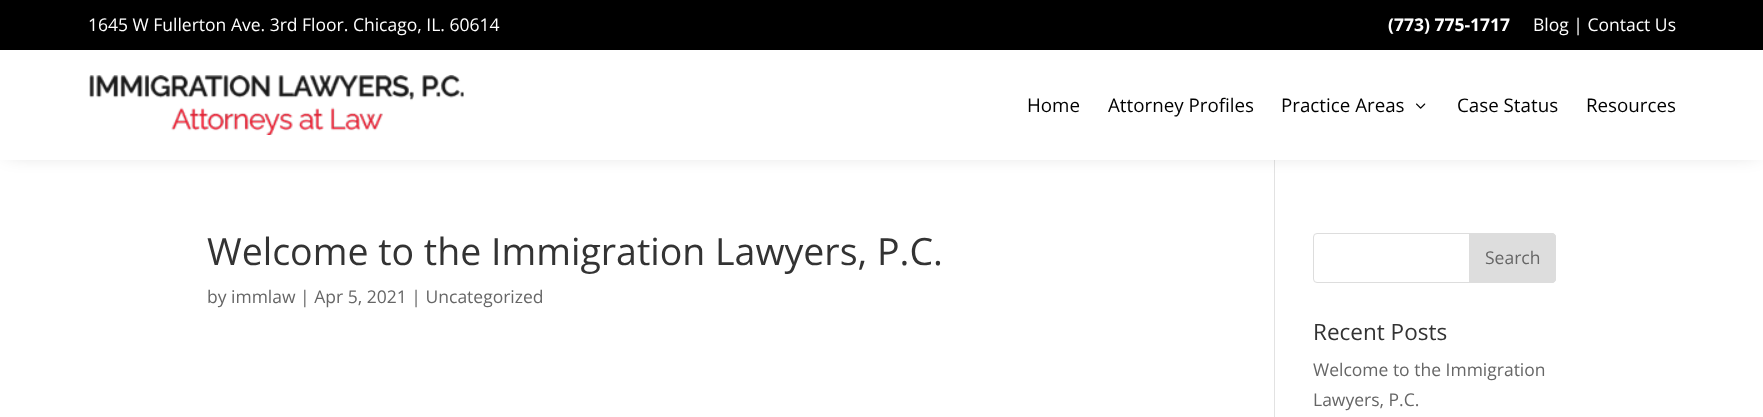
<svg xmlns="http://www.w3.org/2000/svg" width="1763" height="417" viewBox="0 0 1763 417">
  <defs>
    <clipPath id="clip1"><path d="M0 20H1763V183H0ZM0 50H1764V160H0Z" clip-rule="evenodd"/></clipPath>
    <filter id="blur1" x="-50%" y="-200%" width="200%" height="500%"><feGaussianBlur stdDeviation="11"/></filter>
  </defs>
  <rect width="100%" height="100%" fill="#ffffff"/>
  <rect x="0" y="0" width="1763" height="50" fill="#000000"/>
  <text x="88" y="31" font-family="Open Sans" font-size="17.5" fill="#ffffff">1645 W Fullerton Ave. 3rd Floor. Chicago, IL. 60614</text>
  <text x="1388" y="31" font-family="Open Sans" font-size="17.5" font-weight="bold" fill="#ffffff">(773) 775-1717</text>
  <text x="1533" y="31" font-family="Open Sans" font-size="17.5" fill="#ffffff">Blog | Contact Us</text>
  <rect x="1274" y="160" width="1" height="257" fill="#e2e2e2"/>
  <g clip-path="url(#clip1)">
    <rect x="8" y="54" width="1748" height="95" fill="#000000" fill-opacity="0.3" filter="url(#blur1)"/>
  </g>
  <image x="89" y="75" width="375" height="60" href="img1.png"/>
  <text x="1027" y="112" font-family="Open Sans" font-size="18.75" fill="#000000">Home</text>
  <text x="1108" y="112" font-family="Open Sans" font-size="18.75" fill="#000000">Attorney Profiles</text>
  <text x="1281" y="112" font-family="Open Sans" font-size="18.75" fill="#000000">Practice Areas</text>
  <image x="1416" y="103" width="10" height="6" href="img2.png"/>
  <text x="1457" y="112" font-family="Open Sans" font-size="18.75" fill="#000000">Case Status</text>
  <text x="1586" y="112" font-family="Open Sans" font-size="18.75" fill="#000000">Resources</text>
  <text x="207" y="265" font-family="Open Sans" font-size="37.5" fill="#333333">Welcome to the Immigration Lawyers, P.C.</text>
  <text x="207" y="303" font-family="Open Sans" font-size="17.5" fill="#666666">by immlaw | Apr 5, 2021 | Uncategorized</text>
  <rect x="1313.5" y="233.5" width="242" height="49" rx="3.5" fill="none" stroke="#dddddd"/>
  <path d="M1469.5 233.5H1552C1554 233.5 1555.5 235 1555.5 237V279C1555.5 281 1554 282.5 1552 282.5H1469.5Z" fill="#dddddd" stroke="#dddddd"/>
  <text x="1485" y="264" font-family="Open Sans" font-size="17.5" fill="#666666">Search</text>
  <text x="1313" y="340" font-family="Open Sans" font-size="22.5" fill="#333333">Recent Posts</text>
  <text x="1313" y="376" font-family="Open Sans" font-size="17.5" fill="#666666">Welcome to the Immigration</text>
  <text x="1313" y="406" font-family="Open Sans" font-size="17.5" fill="#666666">Lawyers, P.C.</text>
</svg>
